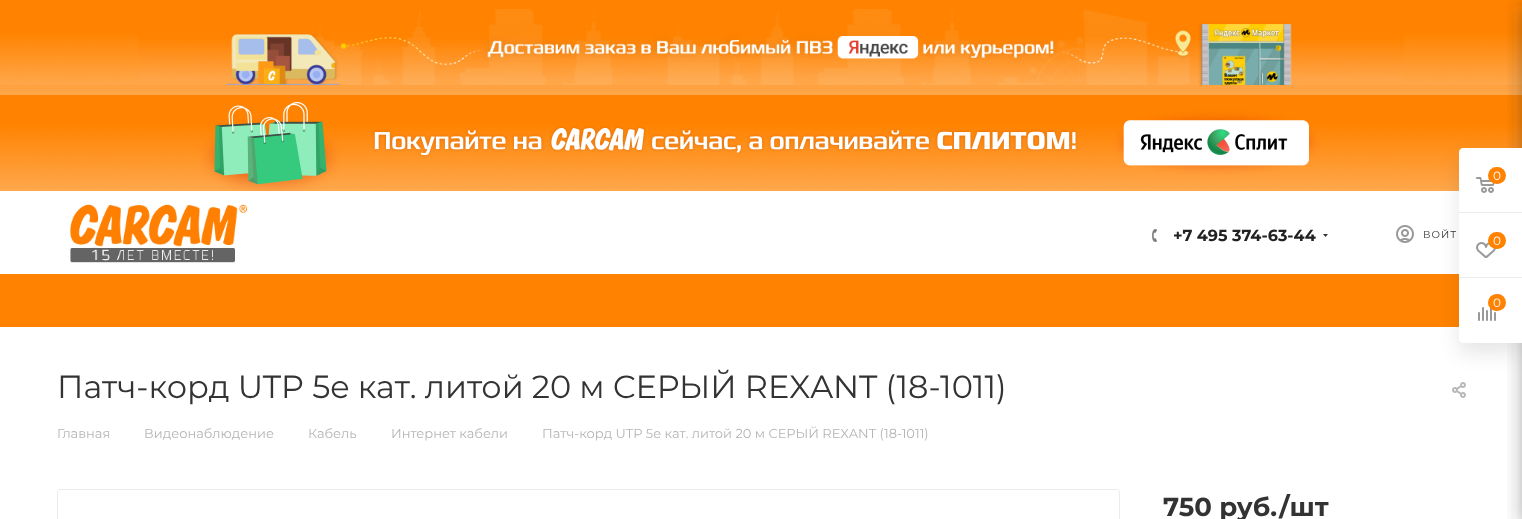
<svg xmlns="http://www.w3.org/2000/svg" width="1522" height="519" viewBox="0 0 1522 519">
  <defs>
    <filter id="blur1" x="-50%" y="-200%" width="200%" height="500%"><feGaussianBlur stdDeviation="9"/></filter>
    <filter id="blur2" x="-50%" y="-200%" width="200%" height="500%"><feGaussianBlur stdDeviation="10"/></filter>
  </defs>
  <rect width="100%" height="100%" fill="#ffffff"/>
  <image x="0" y="0" width="1522" height="95" href="img1.png"/>
  <image x="0" y="95" width="1522" height="96" href="img2.png"/>
  <image x="57" y="196" width="190" height="76" href="img3.png"/>
  <image x="1152" y="229" width="5" height="13" href="img4.png"/>
  <text x="1173" y="241" font-family="Montserrat" font-size="16" font-weight="bold" fill="#222222">+7 495 374-63-44</text>
  <path d="M1323 234H1328L1325.5 237Z" fill="#333333" fill-rule="evenodd"/>
  <image x="1396" y="225" width="18" height="18" href="img5.png"/>
  <text x="1423" y="238" font-family="Montserrat" font-size="10" letter-spacing="1" fill="#333333">ВОЙТ</text>
  <rect x="0" y="274" width="1459" height="53" fill="#ff8200"/>
  <text x="57" y="398" word-spacing="-0.25" font-family="Montserrat" font-size="32" fill="#333333">Патч-корд UTP 5e кат. литой 20 м СЕРЫЙ REXANT (18-1011)</text>
  <image x="1452" y="382" width="14" height="16" href="img6.png"/>
  <text x="57" y="438" font-family="Montserrat" font-size="13" fill="#b6b5b5">Главная</text>
  <text x="144" y="438" font-family="Montserrat" font-size="13" fill="#b6b5b5">Видеонаблюдение</text>
  <text x="308" y="438" font-family="Montserrat" font-size="13" fill="#b6b5b5">Кабель</text>
  <text x="391" y="438" font-family="Montserrat" font-size="13" fill="#b6b5b5">Интернет кабели</text>
  <text x="542" y="438" font-family="Montserrat" font-size="13" fill="#b6b5b5">Патч-корд UTP 5e кат. литой 20 м СЕРЫЙ REXANT (18-1011)</text>
  <rect x="57.5" y="489.5" width="1062" height="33" rx="2.5" fill="none" stroke="#ececec"/>
  <text x="1163" y="516" font-family="Montserrat" font-size="26" font-weight="bold" fill="#333333">750 руб./шт</text>
  <rect x="1522" y="6" width="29" height="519" rx="2" fill="#2c2c2c" fill-opacity="0.4" filter="url(#blur1)"/>
  <rect x="1459" y="158" width="63" height="195" rx="4" fill="#000000" fill-opacity="0.1" filter="url(#blur2)"/>
  <path d="M1463 148H1522V343H1463C1461 343 1459 341 1459 339V152C1459 150 1461 148 1463 148Z" fill="#ffffff"/>
  <rect x="1459" y="212" width="63" height="1" fill="#ececec"/>
  <image x="1476" y="177" width="19" height="16" href="img7.png"/>
  <rect x="1488" y="167" width="18" height="17" rx="8.5" fill="#ff8200"/>
  <text x="1493" y="180" font-family="Montserrat" font-size="12" fill="#ffffff">0</text>
  <rect x="1459" y="277" width="63" height="1" fill="#ececec"/>
  <image x="1476" y="242" width="20" height="16" href="img8.png"/>
  <rect x="1488" y="232" width="18" height="17" rx="8.5" fill="#ff8200"/>
  <text x="1493" y="245" font-family="Montserrat" font-size="12" fill="#ffffff">0</text>
  <image x="1478" y="307" width="18" height="14" href="img9.png"/>
  <rect x="1488" y="294" width="18" height="17" rx="8.5" fill="#ff8200"/>
  <text x="1493" y="307" font-family="Montserrat" font-size="12" fill="#ffffff">0</text>
</svg>
